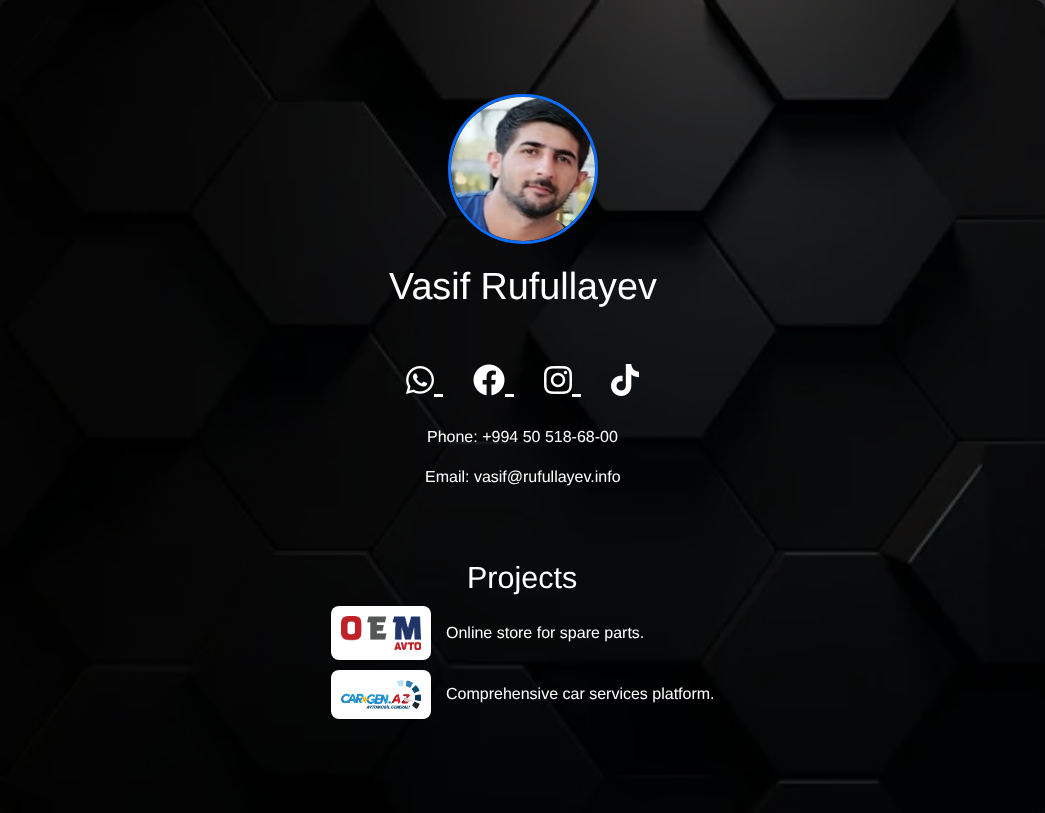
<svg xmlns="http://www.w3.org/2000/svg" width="1045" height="813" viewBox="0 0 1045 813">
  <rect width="100%" height="100%" fill="#ffffff"/>
  <image x="0" y="0" width="1045" height="813" href="img1.png"/>
  <circle cx="523" cy="169" r="73.5" fill="none" stroke="#0d6efd" stroke-width="3"/>
  <image x="451" y="97" width="144" height="144" href="img2.png"/>
  <text x="389" y="299" font-family="Liberation Sans" font-size="37.75" fill="#ffffff">Vasif Rufullayev</text>
  <image x="406" y="366" width="28" height="28" href="img3.png"/>
  <rect x="434" y="394" width="9" height="3" fill="#ffffff"/>
  <image x="473" y="364" width="32" height="32" href="img4.png"/>
  <rect x="505" y="394" width="9" height="3" fill="#ffffff"/>
  <image x="544" y="366" width="28" height="28" href="img5.png"/>
  <rect x="572" y="394" width="9" height="3" fill="#ffffff"/>
  <image x="611" y="364" width="28" height="32" href="img6.png"/>
  <text x="427" y="442" font-family="Liberation Sans" font-size="16" fill="#ffffff">Phone: +994 50 518-68-00</text>
  <text x="425" y="482" font-family="Liberation Sans" font-size="16" fill="#ffffff">Email: vasif@rufullayev.info</text>
  <text x="467" y="588" font-family="Liberation Sans" font-size="30.5" fill="#ffffff">Projects</text>
  <rect x="331" y="606" width="100" height="54" rx="8" fill="#ffffff"/>
  <image x="341" y="616" width="80" height="34" href="img7.png"/>
  <text x="446" y="638" font-family="Liberation Sans" font-size="16" fill="#ffffff">Online store for spare parts.</text>
  <rect x="331" y="670" width="100" height="49" rx="8" fill="#ffffff"/>
  <image x="341" y="680" width="80" height="29" href="img8.png"/>
  <text x="446" y="699" font-family="Liberation Sans" font-size="16" fill="#ffffff">Comprehensive car services platform.</text>
</svg>
